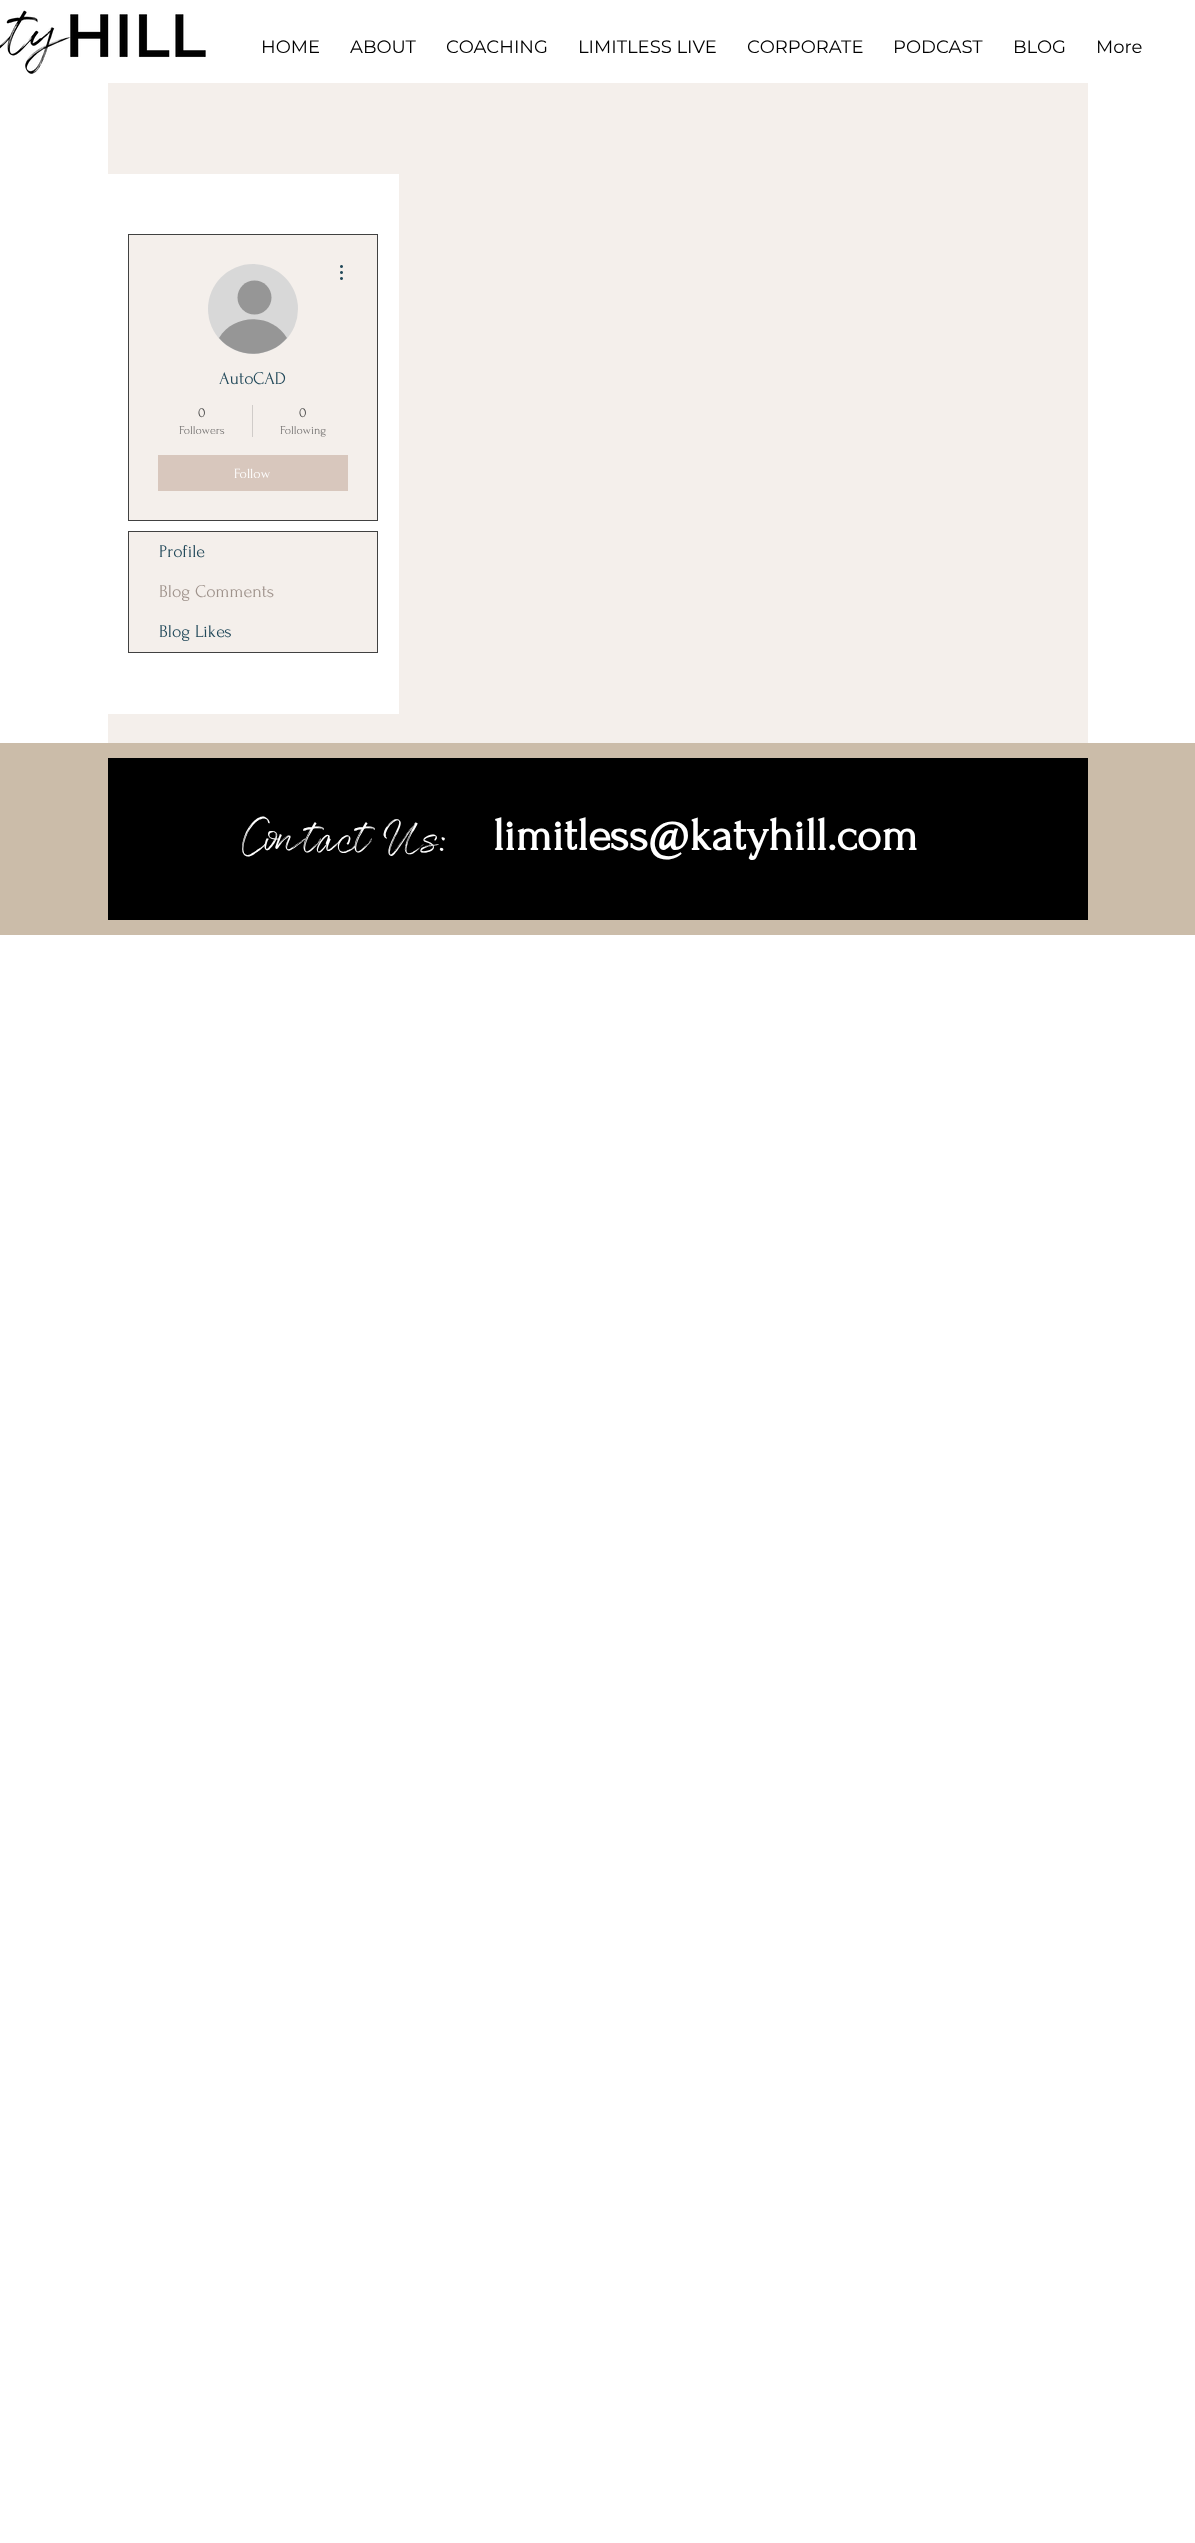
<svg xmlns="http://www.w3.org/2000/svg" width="1195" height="2543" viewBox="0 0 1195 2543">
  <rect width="100%" height="100%" fill="#ffffff"/>
  <image x="0" y="10" width="206" height="64" href="img1.png"/>
  <text x="261" y="53" font-family="Montserrat" font-size="18" fill="#000000">HOME</text>
  <text x="350" y="53" font-family="Montserrat" font-size="18" fill="#000000">ABOUT</text>
  <text x="446" y="53" font-family="Montserrat" font-size="18" fill="#000000">COACHING</text>
  <text x="578" y="53" font-family="Montserrat" font-size="18" fill="#000000">LIMITLESS LIVE</text>
  <text x="747" y="53" font-family="Montserrat" font-size="18" fill="#000000">CORPORATE</text>
  <text x="893" y="53" font-family="Montserrat" font-size="18" fill="#000000">PODCAST</text>
  <text x="1013" y="53" font-family="Montserrat" font-size="18" fill="#000000">BLOG</text>
  <text x="1096" y="53" font-family="Montserrat" font-size="18" fill="#000000">More</text>
  <rect x="108" y="83" width="980" height="660" fill="#f4efeb"/>
  <rect x="108" y="174" width="291" height="540" fill="#ffffff"/>
  <rect x="128.5" y="234.5" width="249" height="286" fill="#f4efeb" stroke="#414141"/>
  <circle cx="253" cy="309" r="45" fill="#d8d8d8"/>
  <circle cx="254.5" cy="297.5" r="17" fill="#969696"/>
  <path d="M287 338C269 359 237 359 219 338C234 313 272 313 287 338Z" fill="#969696"/>
  <image x="340" y="265" width="3" height="15" href="img2.png"/>
  <text x="219" y="384" font-family="Forum" font-size="18" fill="#22495a">AutoCAD</text>
  <text x="198" y="417" font-family="Forum" font-size="14" fill="#414141">0</text>
  <text x="179" y="434" font-family="Forum" font-size="12" fill="#777574">Followers</text>
  <rect x="252" y="405" width="1" height="32" fill="#d0ccc9"/>
  <text x="299" y="417" font-family="Forum" font-size="14" fill="#414141">0</text>
  <text x="280" y="434" font-family="Forum" font-size="12" fill="#777574">Following</text>
  <rect x="158" y="455" width="190" height="36" fill="#d8c7bd"/>
  <text x="234" y="478" font-family="Forum" font-size="14" fill="#ffffff">Follow</text>
  <rect x="128.5" y="531.5" width="249" height="121" fill="none" stroke="#414141"/>
  <rect x="129" y="532" width="248" height="120" fill="#f4efeb"/>
  <text x="159" y="557" font-family="Forum" font-size="18" fill="#22495a">Profile</text>
  <text x="159" y="597" font-family="Forum" font-size="18" fill="#9e928b">Blog Comments</text>
  <text x="159" y="637" font-family="Forum" font-size="18" fill="#22495a">Blog Likes</text>
  <rect x="0" y="743" width="1195" height="192" fill="#cbbca9"/>
  <rect x="108" y="758" width="980" height="162" fill="#000000"/>
  <text x="242" y="852" font-family="'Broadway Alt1'" font-size="40" fill="#ffffff">Contact Us:</text>
  <text x="493" y="850" font-family="Forum" font-size="47" font-weight="bold" fill="#ffffff">limitless@katyhill.com</text>
</svg>
